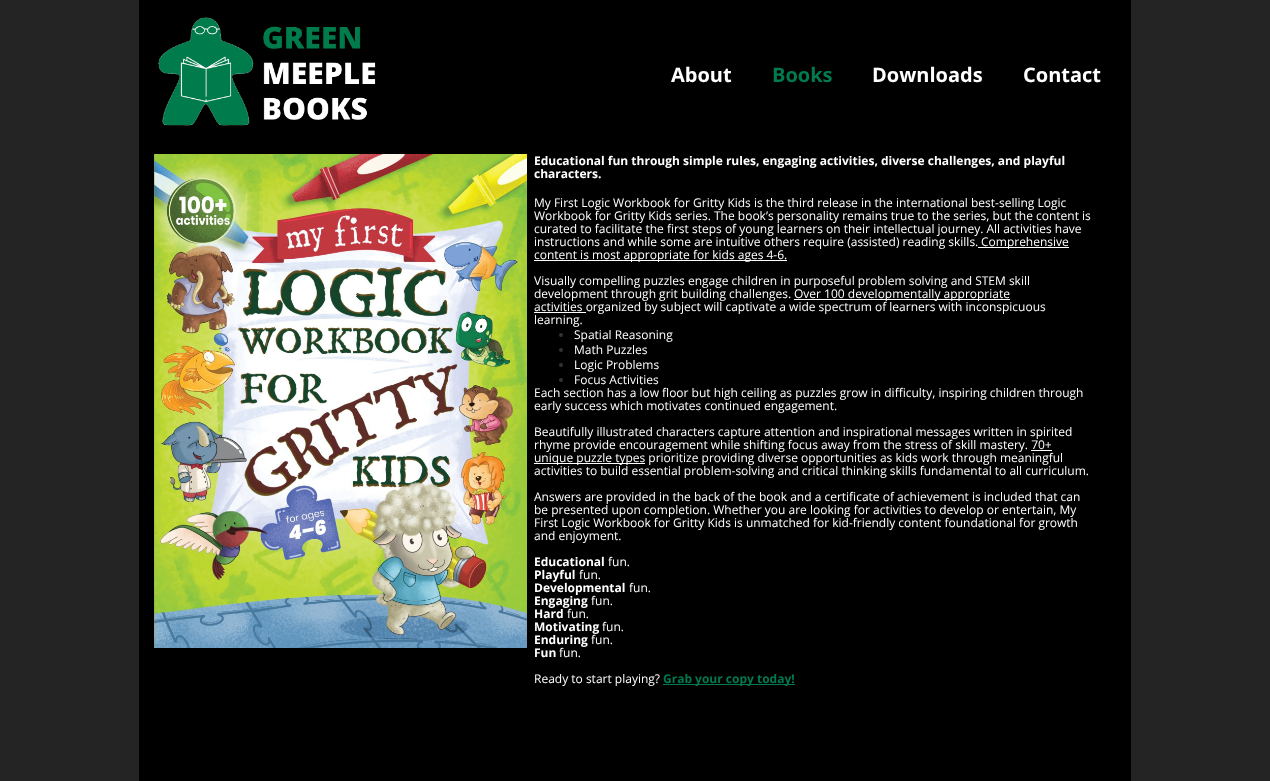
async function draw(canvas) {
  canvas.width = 1270
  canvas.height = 781
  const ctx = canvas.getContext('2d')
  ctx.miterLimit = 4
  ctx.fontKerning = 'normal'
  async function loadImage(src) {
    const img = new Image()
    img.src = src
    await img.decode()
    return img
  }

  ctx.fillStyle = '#242424'
  ctx.fillRect(0, 0, 1270, 781)
  ctx.fillStyle = '#000'
  ctx.fillRect(139, 0, 992, 781)
  ctx.drawImage(await loadImage('image0.png'), 158, 17, 218, 109)
  ctx.font = 'bold 20px Open Sans'
  ctx.fillStyle = '#fff'
  ctx.fillText('About', 671, 82)
  ctx.fillStyle = '#007a4e'
  ctx.fillText('Books', 772, 82)
  ctx.fillStyle = '#fff'
  ctx.fillText('Downloads', 872, 82)
  ctx.fillText('Contact', 1023, 82)
  ctx.drawImage(await loadImage('image1.png'), 154, 154, 373, 494)
  ctx.font = 'bold 12px Open Sans'
  ctx.fillText('Educational fun through simple rules, engaging activities, diverse challenges, and playful', 534, 165)
  ctx.fillText('characters.', 534, 178)
  ctx.font = '12px Open Sans'
  ctx.fillText('My First Logic Workbook for Gritty Kids is the third release in the international best-selling Logic', 534, 207)
  ctx.fillText('Workbook for Gritty Kids series. The book’s personality remains true to the series, but the content is', 534, 220)
  ctx.fillText('curated to facilitate the first steps of young learners on their intellectual journey. All activities have', 534, 233)
  ctx.fillText('instructions and while some are intuitive others require (assisted) reading skills.', 534, 246)
  ctx.fillRect(978, 247, 91, 1)
  ctx.fillText('Comprehensive', 981, 246)
  ctx.fillRect(534, 260, 253, 1)
  ctx.fillText('content is most appropriate for kids ages 4-6.', 534, 259)
  ctx.fillText('Visually compelling puzzles engage children in purposeful problem solving and STEM skill', 534, 285)
  ctx.fillText('development through grit building challenges.', 534, 298)
  ctx.fillRect(794, 299, 216, 1)
  ctx.fillText('Over 100 developmentally appropriate', 794, 298)
  ctx.fillRect(534, 312, 52, 1)
  ctx.fillText('activities organized by subject will captivate a wide spectrum of learners with inconspicuous', 534, 311)
  ctx.fillText('learning.', 534, 324)
  ctx.fillStyle = '#333'
  ctx.beginPath()
  ctx.arc(561, 335, 2, 0, 2 * Math.PI)
  ctx.fill()
  ctx.fillStyle = '#fff'
  ctx.fillText('Spatial Reasoning', 574, 339)
  ctx.fillStyle = '#333'
  ctx.beginPath()
  ctx.arc(561, 350, 2, 0, 2 * Math.PI)
  ctx.fill()
  ctx.fillStyle = '#fff'
  ctx.fillText('Math Puzzles', 574, 354)
  ctx.fillStyle = '#333'
  ctx.beginPath()
  ctx.arc(561, 365, 2, 0, 2 * Math.PI)
  ctx.fill()
  ctx.fillStyle = '#fff'
  ctx.fillText('Logic Problems', 574, 369)
  ctx.fillStyle = '#333'
  ctx.beginPath()
  ctx.arc(561, 380, 2, 0, 2 * Math.PI)
  ctx.fill()
  ctx.fillStyle = '#fff'
  ctx.fillText('Focus Activities', 574, 384)
  ctx.fillText('Each section has a low floor but high ceiling as puzzles grow in difficulty, inspiring children through', 534, 397)
  ctx.fillText('early success which motivates continued engagement.', 534, 410)
  ctx.fillText('Beautifully illustrated characters capture attention and inspirational messages written in spirited', 534, 436)
  ctx.fillText('rhyme provide encouragement while shifting focus away from the stress of skill mastery. 70+', 534, 449)
  ctx.fillRect(534, 463, 111, 1)
  ctx.fillText('unique puzzle types prioritize providing diverse opportunities as kids work through meaningful', 534, 462)
  ctx.fillRect(1031, 450, 21, 1)
  ctx.fillText('activities to build essential problem-solving and critical thinking skills fundamental to all curriculum.', 534, 475)
  ctx.fillText('Answers are provided in the back of the book and a certificate of achievement is included that can', 534, 501)
  ctx.fillText('be presented upon completion. Whether you are looking for activities to develop or entertain, My', 534, 514)
  ctx.fillText('First Logic Workbook for Gritty Kids is unmatched for kid-friendly content foundational for growth', 534, 527)
  ctx.fillText('and enjoyment.', 534, 540)
  ctx.font = 'bold 12px Open Sans'
  ctx.fillText('Educational', 534, 566)
  ctx.font = '12px Open Sans'
  ctx.fillText('fun.', 608, 566)
  ctx.font = 'bold 12px Open Sans'
  ctx.fillText('Playful', 534, 579)
  ctx.font = '12px Open Sans'
  ctx.fillText('fun.', 579, 579)
  ctx.font = 'bold 12px Open Sans'
  ctx.fillText('Developmental', 534, 592)
  ctx.font = '12px Open Sans'
  ctx.fillText('fun.', 629, 592)
  ctx.font = 'bold 12px Open Sans'
  ctx.fillText('Engaging', 534, 605)
  ctx.font = '12px Open Sans'
  ctx.fillText('fun.', 591, 605)
  ctx.font = 'bold 12px Open Sans'
  ctx.fillText('Hard', 534, 618)
  ctx.font = '12px Open Sans'
  ctx.fillText('fun.', 567, 618)
  ctx.font = 'bold 12px Open Sans'
  ctx.fillText('Motivating', 534, 631)
  ctx.font = '12px Open Sans'
  ctx.fillText('fun.', 602, 631)
  ctx.font = 'bold 12px Open Sans'
  ctx.fillText('Enduring', 534, 644)
  ctx.font = '12px Open Sans'
  ctx.fillText('fun.', 591, 644)
  ctx.font = 'bold 12px Open Sans'
  ctx.fillText('Fun', 534, 657)
  ctx.font = '12px Open Sans'
  ctx.fillText('fun.', 559, 657)
  ctx.fillText('Ready to start playing?', 534, 683)
  ctx.fillStyle = '#007a4e'
  ctx.fillRect(663, 684, 132, 1)
  ctx.font = 'bold 12px Open Sans'
  ctx.fillText('Grab your copy today!', 663, 683)
}

draw(document.querySelector('canvas'))
